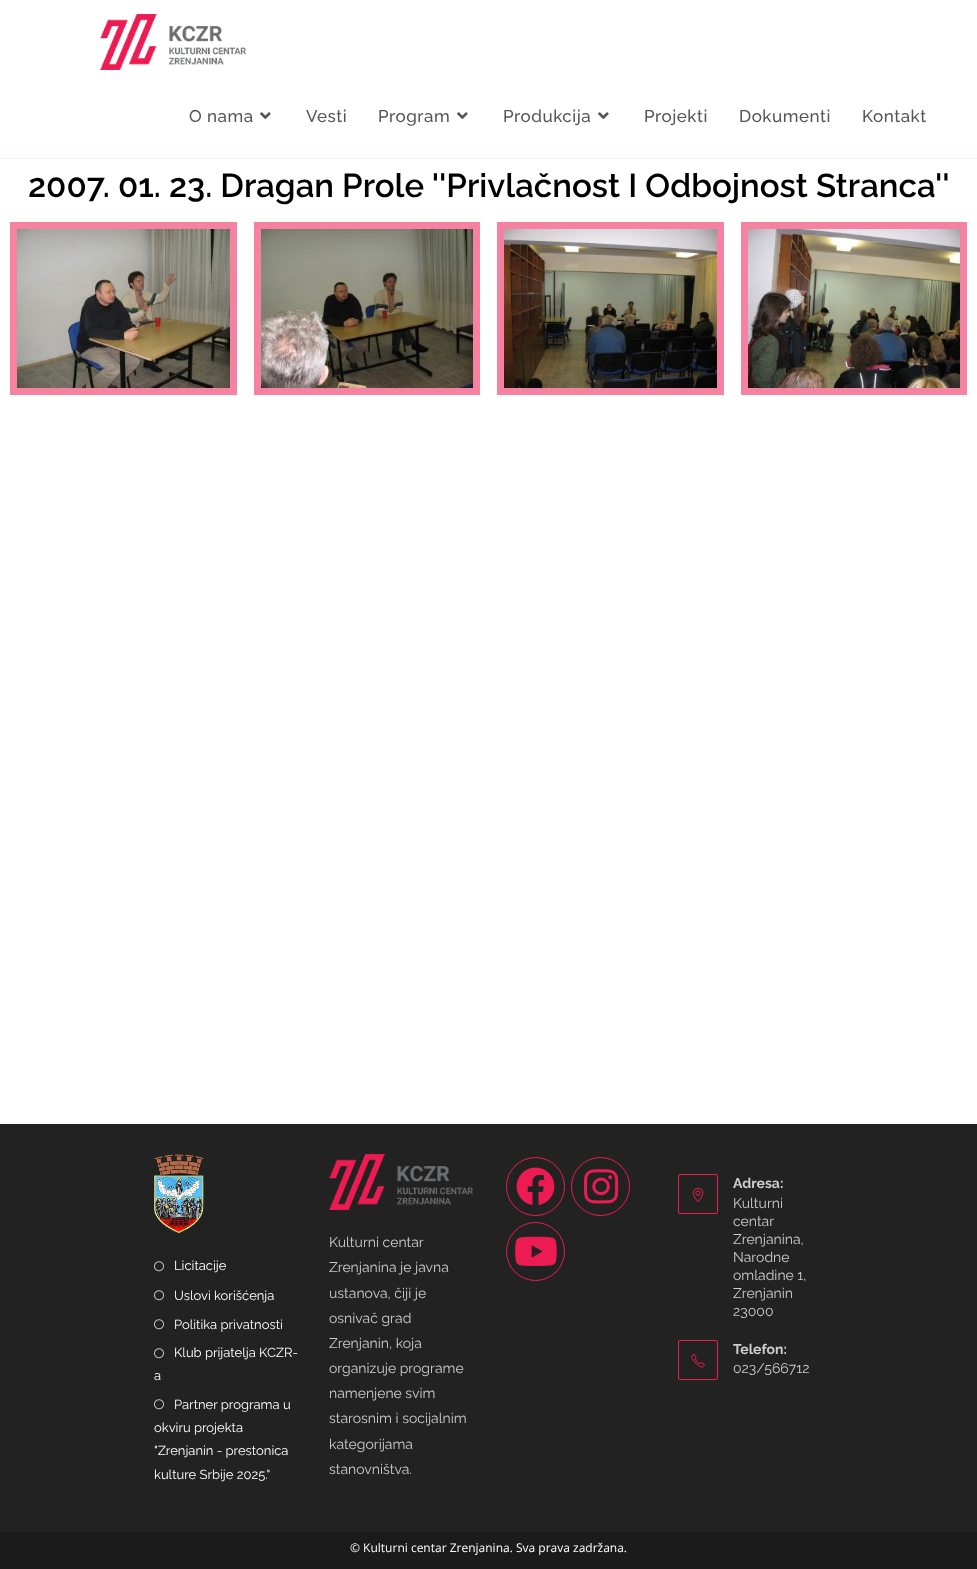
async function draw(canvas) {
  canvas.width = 977
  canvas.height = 1569
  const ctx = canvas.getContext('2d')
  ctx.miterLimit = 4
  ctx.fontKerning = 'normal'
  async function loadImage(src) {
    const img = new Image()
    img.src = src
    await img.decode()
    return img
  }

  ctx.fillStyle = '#fff'
  ctx.fillRect(0, 0, 977, 1569)
  ctx.fillStyle = '#fdeaef'
  ctx.fillRect(0, 158, 977, 1)
  ctx.drawImage(await loadImage('image0.png'), 100, 14, 146, 56)
  ctx.letterSpacing = '0.5px'
  ctx.font = '500 17px Raleway'
  ctx.fillStyle = '#555'
  ctx.fillText('O nama', 189, 122)
  ctx.drawImage(await loadImage('image1.png'), 260, 112, 11, 7)
  ctx.fillText('Vesti', 306, 122)
  ctx.fillText('Program', 378, 122)
  ctx.drawImage(await loadImage('image1.png'), 457, 112, 11, 7)
  ctx.fillText('Produkcija', 503, 122)
  ctx.drawImage(await loadImage('image1.png'), 598, 112, 11, 7)
  ctx.fillText('Projekti', 644, 122)
  ctx.fillText('Dokumenti', 739, 122)
  ctx.fillText('Kontakt', 862, 122)
  ctx.letterSpacing = '0px'
  ctx.font = '600 33px Raleway'
  ctx.fillStyle = '#000'
  ctx.fillText('2007. 01. 23. Dragan Prole \'\'Privlačnost I Odbojnost Stranca\'\'', 28, 197)
  ctx.strokeStyle = '#f582a0'
  ctx.lineWidth = 7
  ctx.strokeRect(13.5, 225.5, 220, 166)
  ctx.drawImage(await loadImage('image2.png'), 17, 229, 213, 159)
  ctx.strokeRect(257.5, 225.5, 219, 166)
  ctx.drawImage(await loadImage('image3.png'), 261, 229, 212, 159)
  ctx.strokeRect(500.5, 225.5, 220, 166)
  ctx.drawImage(await loadImage('image4.png'), 504, 229, 213, 159)
  ctx.strokeRect(744.5, 225.5, 219, 166)
  ctx.drawImage(await loadImage('image5.png'), 748, 229, 212, 159)
  ctx.fillStyle = '#222'
  ctx.fillRect(0, 1124, 977, 408)
  ctx.drawImage(await loadImage('image6.png'), 154, 1154, 50, 79)
  ctx.drawImage(await loadImage('image7.png'), 154, 1261, 10, 11)
  ctx.font = '13px Raleway'
  ctx.fillStyle = '#fff'
  ctx.fillText('Licitacije', 174, 1270)
  ctx.drawImage(await loadImage('image7.png'), 154, 1290, 10, 11)
  ctx.fillText('Uslovi korišćenja', 174, 1300)
  ctx.drawImage(await loadImage('image7.png'), 154, 1319, 10, 11)
  ctx.fillText('Politika privatnosti', 174, 1329)
  ctx.drawImage(await loadImage('image7.png'), 154, 1348, 10, 11)
  ctx.fillText('Klub prijatelja KCZR-', 174, 1357)
  ctx.fillText('a', 154, 1380)
  ctx.drawImage(await loadImage('image7.png'), 154, 1399, 10, 11)
  ctx.fillText('Partner programa u', 174, 1409)
  ctx.fillText('okviru projekta', 154, 1432)
  ctx.fillText('"Zrenjanin - prestonica', 154, 1455)
  ctx.fillText('kulture Srbije 2025."', 154, 1479)
  ctx.drawImage(await loadImage('image8.png'), 329, 1154, 144, 56)
  ctx.font = '14px Raleway'
  ctx.fillStyle = '#ccc'
  ctx.fillText('Kulturni centar', 329, 1247)
  ctx.fillText('Zrenjanina je javna', 329, 1272)
  ctx.fillText('ustanova, čiji je', 329, 1298)
  ctx.fillText('osnivač grad', 329, 1323)
  ctx.fillText('Zrenjanin, koja', 329, 1348)
  ctx.fillText('organizuje programe', 329, 1373)
  ctx.fillText('namenjene svim', 329, 1398)
  ctx.fillText('starosnim i socijalnim', 329, 1423)
  ctx.fillText('kategorijama', 329, 1449)
  ctx.fillText('stanovništva.', 329, 1474)
  ctx.beginPath()
  ctx.arc(535.5, 1186.5, 29, 0, 2 * Math.PI)
  ctx.strokeStyle = '#ec1b52'
  ctx.lineWidth = 1
  ctx.stroke()
  ctx.drawImage(await loadImage('image9.png'), 516, 1167, 39, 38)
  ctx.beginPath()
  ctx.arc(600.5, 1186.5, 29, 0, 2 * Math.PI)
  ctx.stroke()
  ctx.drawImage(await loadImage('image10.png'), 584, 1169, 35, 35)
  ctx.beginPath()
  ctx.arc(535.5, 1251.5, 29, 0, 2 * Math.PI)
  ctx.stroke()
  ctx.drawImage(await loadImage('image11.png'), 515, 1236, 42, 30)
  ctx.beginPath()
  ctx.roundRect(678.5, 1174.5, 39, 39, 1.5)
  ctx.stroke()
  ctx.drawImage(await loadImage('image12.png'), 692, 1187, 12, 15)
  ctx.font = 'bold 14px Raleway'
  ctx.fillText('Adresa:', 733, 1188)
  ctx.font = '14px Raleway'
  ctx.fillText('Kulturni', 733, 1208)
  ctx.fillText('centar', 733, 1226)
  ctx.fillText('Zrenjanina,', 733, 1244)
  ctx.fillText('Narodne', 733, 1262)
  ctx.fillText('omladine 1,', 733, 1280)
  ctx.fillText('Zrenjanin', 733, 1298)
  ctx.fillText('23000', 733, 1316)
  ctx.beginPath()
  ctx.roundRect(678.5, 1340.5, 39, 39, 1.5)
  ctx.stroke()
  ctx.drawImage(await loadImage('image13.png'), 691, 1354, 14, 14)
  ctx.font = 'bold 14px Raleway'
  ctx.fillText('Telefon:', 733, 1354)
  ctx.font = '14px Raleway'
  ctx.fillText('023/566712', 733, 1373)
  ctx.fillStyle = '#1b1b1b'
  ctx.fillRect(0, 1532, 977, 37)
  ctx.font = '12px Open Sans'
  ctx.fillStyle = '#fff'
  ctx.fillText('© Kulturni centar Zrenjanina. Sva prava zadržana.', 350, 1552)
}

draw(document.querySelector('canvas'))
